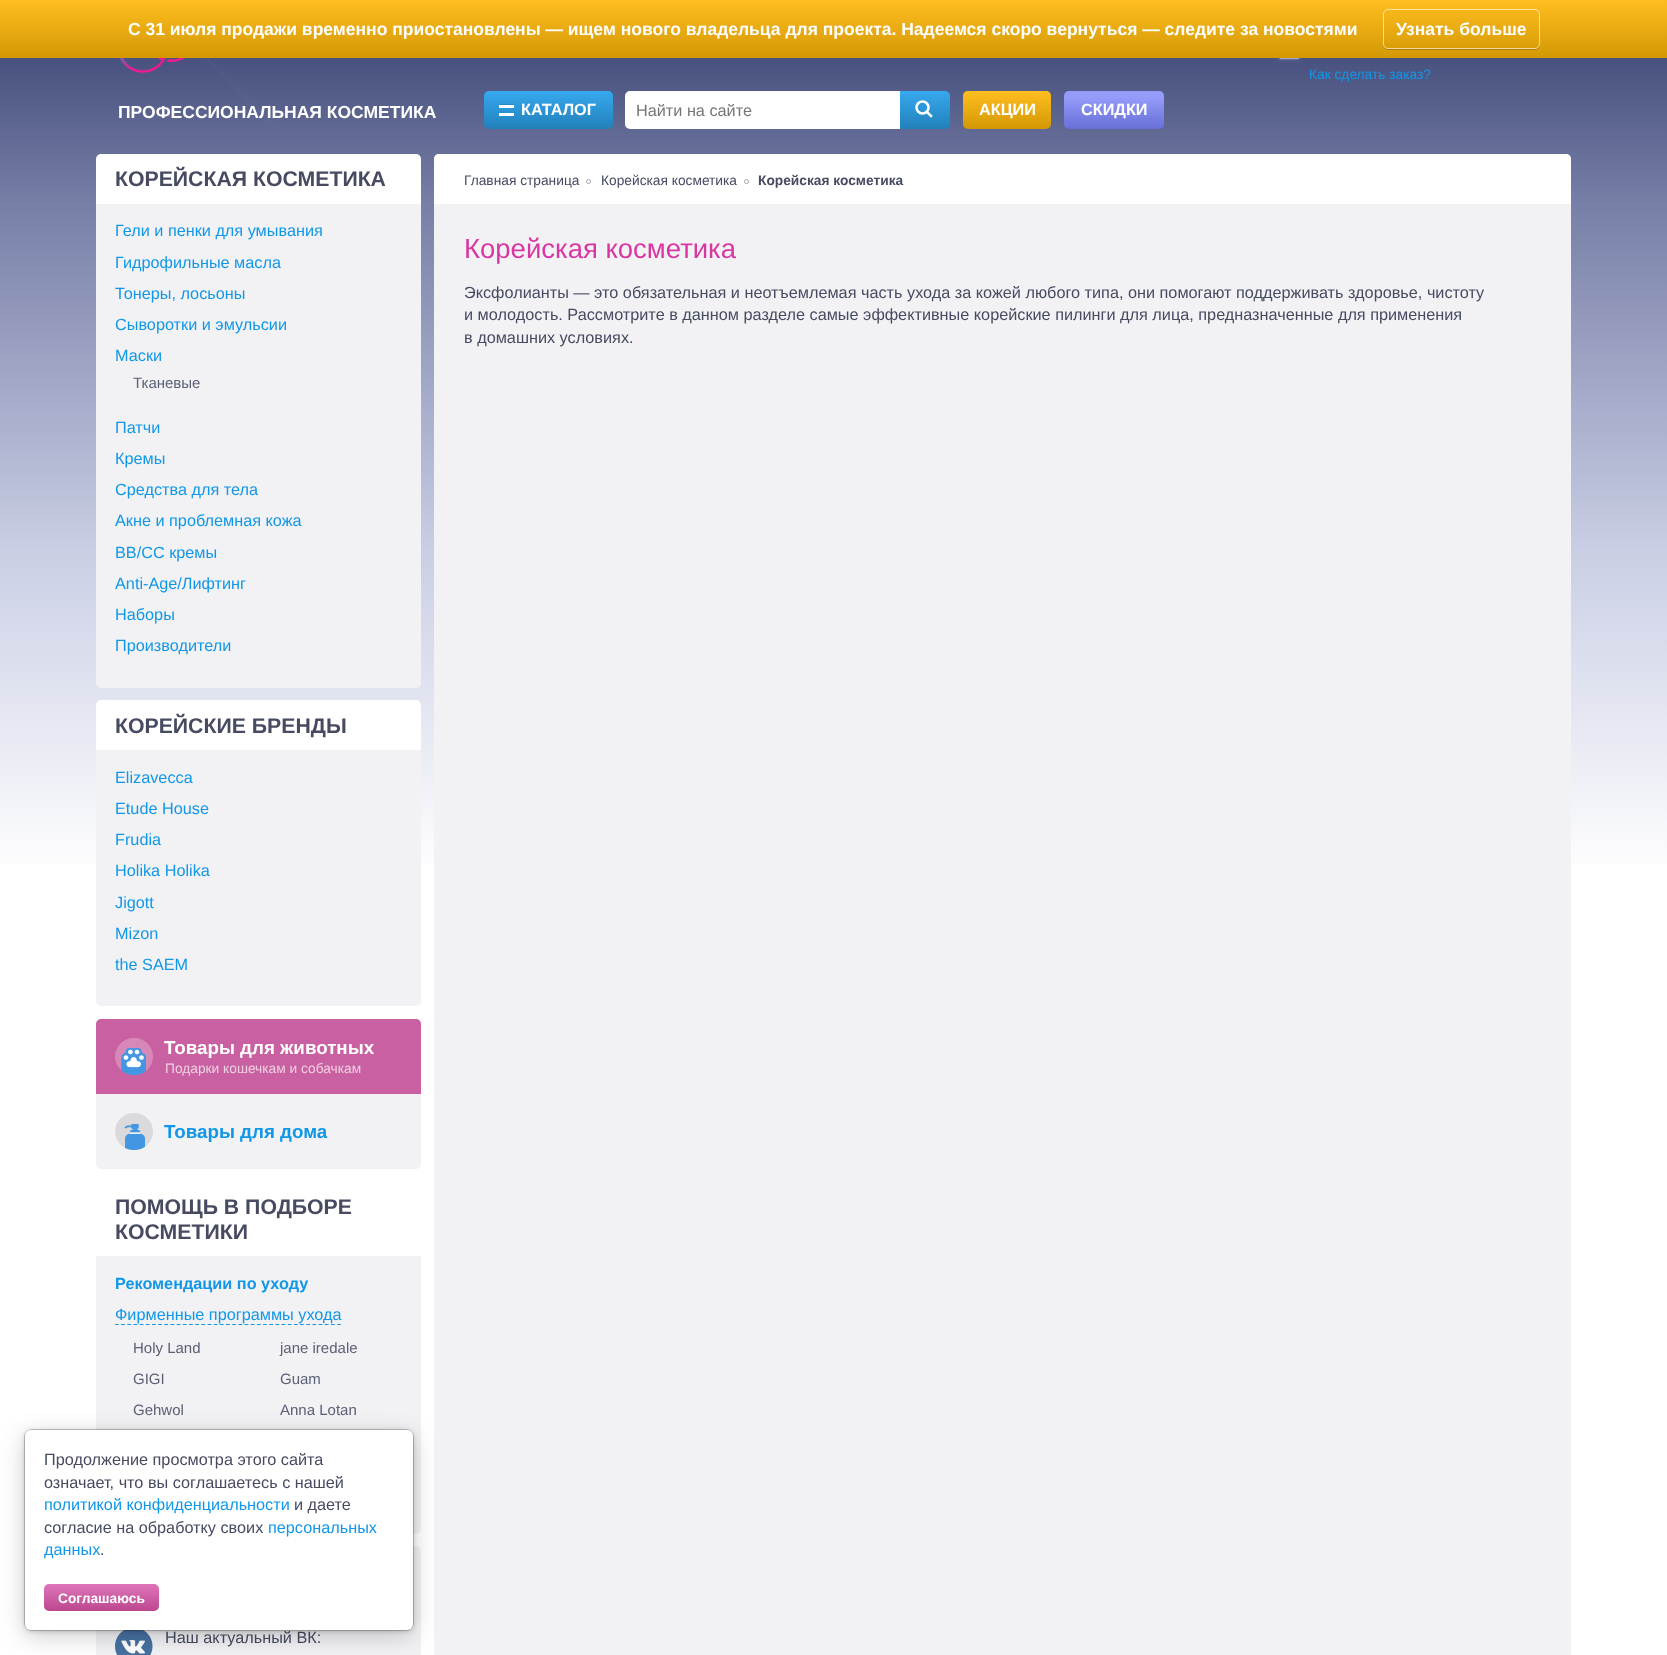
async function draw(canvas) {
  canvas.width = 1667
  canvas.height = 1655
  const ctx = canvas.getContext('2d')
  ctx.miterLimit = 4
  ctx.fontKerning = 'normal'
  async function loadImage(src) {
    const img = new Image()
    img.src = src
    await img.decode()
    return img
  }
  let gradient

  ctx.fillStyle = '#fff'
  ctx.fillRect(0, 0, 1667, 1655)
  gradient = ctx.createLinearGradient(834, -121, 834, 879)
  gradient.addColorStop(0, '#0f194e')
  gradient.addColorStop(0.32, '#767ea6')
  gradient.addColorStop(0.67, '#c9cee4')
  gradient.addColorStop(1, '#fff')
  ctx.fillStyle = gradient
  ctx.fillRect(0, 58, 1667, 806)
  ctx.drawImage(await loadImage('image0.png'), 206, 58, 71, 70)
  gradient = ctx.createLinearGradient(834, 0, 834, 58)
  gradient.addColorStop(0, '#ffbe20')
  gradient.addColorStop(1, '#d39804')
  ctx.fillStyle = gradient
  ctx.fillRect(0, 0, 1667, 58)
  ctx.font = 'bold 17.5px Liberation Sans'
  ctx.fillStyle = '#fff'
  ctx.fillText('С 31 июля продажи временно приостановлены — ищем нового владельца для проекта. Надеемся скоро вернуться — следите за новостями', 128, 35)
  ctx.save()
  ctx.beginPath()
  ctx.moveTo(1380, 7)
  ctx.lineTo(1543, 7)
  ctx.lineTo(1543, 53)
  ctx.lineTo(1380, 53)
  ctx.closePath()
  ctx.moveTo(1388, 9)
  ctx.lineTo(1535, 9)
  ctx.bezierCurveTo(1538, 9, 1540, 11, 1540, 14)
  ctx.lineTo(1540, 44)
  ctx.bezierCurveTo(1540, 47, 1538, 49, 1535, 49)
  ctx.lineTo(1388, 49)
  ctx.bezierCurveTo(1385, 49, 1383, 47, 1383, 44)
  ctx.lineTo(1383, 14)
  ctx.bezierCurveTo(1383, 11, 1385, 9, 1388, 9)
  ctx.closePath()
  ctx.clip('evenodd')
  ctx.fillStyle = '#00000033'
  ctx.filter = 'blur(0.5px)'
  ctx.beginPath()
  ctx.roundRect(1383, 10, 157, 40, 5)
  ctx.fill()
  ctx.filter = 'none'
  ctx.restore()
  ctx.beginPath()
  ctx.roundRect(1383.5, 9.5, 156, 39, 4.5)
  ctx.strokeStyle = '#ffffff99'
  ctx.stroke()
  ctx.fillText('Узнать больше', 1396, 35)
  ctx.drawImage(await loadImage('image1.png'), 120, 58, 65, 15)
  ctx.fillText('ПРОФЕССИОНАЛЬНАЯ КОСМЕТИКА', 118, 118)
  ctx.drawImage(await loadImage('image2.png'), 1275, 58, 28, 5)
  ctx.font = '13.75px Liberation Sans'
  ctx.fillStyle = '#1197e8'
  ctx.fillText('Как сделать заказ?', 1309, 79)
  ctx.fillStyle = '#2280b9'
  ctx.beginPath()
  ctx.roundRect(484, 91, 129, 38, 5)
  ctx.fill()
  gradient = ctx.createLinearGradient(548, 91, 548, 129)
  gradient.addColorStop(0, '#36a9ef')
  gradient.addColorStop(1, '#36a9ef00')
  ctx.fillStyle = gradient
  ctx.beginPath()
  ctx.roundRect(484, 91, 129, 38, 5)
  ctx.fill()
  ctx.fillStyle = '#2a8bc6'
  ctx.beginPath()
  ctx.moveTo(499, 104)
  ctx.lineTo(499, 105)
  ctx.lineTo(514, 105)
  ctx.lineTo(514, 114)
  ctx.lineTo(514, 104)
  ctx.closePath()
  ctx.fill()
  ctx.fillStyle = '#fff'
  ctx.fillRect(499, 105, 15, 3)
  ctx.fillRect(499, 113, 15, 3)
  ctx.font = 'bold 16.25px Liberation Sans'
  ctx.fillText('КАТАЛОГ', 521, 115)
  ctx.beginPath()
  ctx.roundRect(625, 91, 275, 38, [5, 0, 0, 5])
  ctx.fill()
  ctx.font = '16.25px Liberation Sans'
  ctx.fillStyle = '#757575'
  ctx.fillText('Найти на сайте', 636, 116)
  gradient = ctx.createLinearGradient(925, 91, 925, 129)
  gradient.addColorStop(0, '#36a9ef')
  gradient.addColorStop(1, '#2280b9')
  ctx.fillStyle = gradient
  ctx.beginPath()
  ctx.roundRect(900, 91, 50, 38, [0, 5, 5, 0])
  ctx.fill()
  ctx.beginPath()
  ctx.arc(922.5, 107.5, 6, 0, 2 * Math.PI)
  ctx.strokeStyle = '#fff'
  ctx.lineWidth = 2.5
  ctx.stroke()
  ctx.beginPath()
  ctx.moveTo(927.5, 112.5)
  ctx.lineTo(931, 116)
  ctx.lineCap = 'square'
  ctx.stroke()
  ctx.fillStyle = '#d39804'
  ctx.beginPath()
  ctx.roundRect(963, 91, 88, 38, 5)
  ctx.fill()
  gradient = ctx.createLinearGradient(1007, 91, 1007, 129)
  gradient.addColorStop(0, '#ffbe20')
  gradient.addColorStop(1, '#ffbe2000')
  ctx.fillStyle = gradient
  ctx.beginPath()
  ctx.roundRect(963, 91, 88, 38, 5)
  ctx.fill()
  ctx.font = 'bold 16.25px Liberation Sans'
  ctx.fillStyle = '#fff'
  ctx.fillText('АКЦИИ', 979, 115)
  ctx.fillStyle = '#686fd7'
  ctx.beginPath()
  ctx.roundRect(1064, 91, 100, 38, 5)
  ctx.fill()
  gradient = ctx.createLinearGradient(1114, 91, 1114, 129)
  gradient.addColorStop(0.17, '#949bf9')
  gradient.addColorStop(1, '#949bf900')
  ctx.fillStyle = gradient
  ctx.beginPath()
  ctx.roundRect(1064, 91, 100, 38, 5)
  ctx.fill()
  ctx.fillStyle = '#fff'
  ctx.fillText('СКИДКИ', 1081, 115)
  ctx.beginPath()
  ctx.roundRect(96, 154, 325, 50, [5, 5, 0, 0])
  ctx.fill()
  ctx.font = 'bold 21.25px Liberation Sans'
  ctx.fillStyle = '#464b61'
  ctx.fillText('КОРЕЙСКАЯ КОСМЕТИКА', 115, 186)
  ctx.fillStyle = '#f2f2f4'
  ctx.beginPath()
  ctx.roundRect(96, 204, 325, 484, [0, 0, 5, 5])
  ctx.fill()
  ctx.font = '16.25px Liberation Sans'
  ctx.fillStyle = '#1197e8'
  ctx.fillText('Гели и пенки для умывания', 115, 236)
  ctx.fillText('Гидрофильные масла', 115, 268)
  ctx.fillText('Тонеры, лосьоны', 115, 299)
  ctx.fillText('Сыворотки и эмульсии', 115, 330)
  ctx.fillText('Маски', 115, 361)
  ctx.font = '15px Liberation Sans'
  ctx.fillStyle = '#5b6076'
  ctx.fillText('Тканевые', 133, 388)
  ctx.font = '16.25px Liberation Sans'
  ctx.fillStyle = '#1197e8'
  ctx.fillText('Патчи', 115, 433)
  ctx.fillText('Кремы', 115, 464)
  ctx.fillText('Средства для тела', 115, 495)
  ctx.fillText('Акне и проблемная кожа', 115, 526)
  ctx.fillText('BB/СС кремы', 115, 558)
  ctx.fillText('Anti-Age/Лифтинг', 115, 589)
  ctx.fillText('Наборы', 115, 620)
  ctx.fillText('Производители', 115, 651)
  ctx.fillStyle = '#fff'
  ctx.beginPath()
  ctx.roundRect(96, 700, 325, 50, [5, 5, 0, 0])
  ctx.fill()
  ctx.font = 'bold 21.25px Liberation Sans'
  ctx.fillStyle = '#464b61'
  ctx.fillText('КОРЕЙСКИЕ БРЕНДЫ', 115, 733)
  ctx.fillStyle = '#f2f2f4'
  ctx.beginPath()
  ctx.roundRect(96, 750, 325, 256, [0, 0, 5, 5])
  ctx.fill()
  ctx.font = '16.25px Liberation Sans'
  ctx.fillStyle = '#1197e8'
  ctx.fillText('Elizavecca', 115, 783)
  ctx.fillText('Etude House', 115, 814)
  ctx.fillText('Frudia', 115, 845)
  ctx.fillText('Holika Holika', 115, 876)
  ctx.fillText('Jigott', 115, 908)
  ctx.fillText('Mizon', 115, 939)
  ctx.fillText('the SAEM', 115, 970)
  ctx.fillStyle = '#c960a1'
  ctx.beginPath()
  ctx.roundRect(96, 1019, 325, 75, [5, 5, 0, 0])
  ctx.fill()
  ctx.fillStyle = '#d788b9'
  ctx.beginPath()
  ctx.roundRect(115, 1038, 38, 37, 18.5)
  ctx.fill()
  ctx.drawImage(await loadImage('image3.png'), 121, 1048, 25, 27)
  ctx.font = 'bold 18.75px Liberation Sans'
  ctx.fillStyle = '#fff'
  ctx.fillText('Товары для животных', 164, 1054)
  ctx.font = '13.75px Liberation Sans'
  ctx.fillStyle = '#efcfe3'
  ctx.fillText('Подарки кошечкам и собачкам', 165, 1073)
  ctx.fillStyle = '#f2f2f4'
  ctx.beginPath()
  ctx.roundRect(96, 1094, 325, 75, [0, 0, 5, 5])
  ctx.fill()
  ctx.fillStyle = '#dadadc'
  ctx.beginPath()
  ctx.roundRect(115, 1113, 38, 37, 18.5)
  ctx.fill()
  ctx.drawImage(await loadImage('image4.png'), 124, 1124, 21, 26)
  ctx.font = 'bold 18.75px Liberation Sans'
  ctx.fillStyle = '#1197e8'
  ctx.fillText('Товары для дома', 164, 1138)
  ctx.font = 'bold 21.25px Liberation Sans'
  ctx.fillStyle = '#464b61'
  ctx.fillText('ПОМОЩЬ В ПОДБОРЕ', 115, 1214)
  ctx.fillText('КОСМЕТИКИ', 115, 1239)
  ctx.fillStyle = '#f2f2f4'
  ctx.beginPath()
  ctx.roundRect(96, 1256, 325, 278, [0, 0, 5, 5])
  ctx.fill()
  ctx.font = 'bold 16.25px Liberation Sans'
  ctx.fillStyle = '#1197e8'
  ctx.fillText('Рекомендации по уходу', 115, 1289)
  ctx.beginPath()
  ctx.moveTo(115, 1324.5)
  ctx.lineTo(341, 1324.5)
  ctx.strokeStyle = '#1197e8'
  ctx.lineWidth = 1.2
  ctx.lineCap = 'butt'
  ctx.setLineDash([3.75, 2.42])
  ctx.stroke()
  ctx.font = '16.25px Liberation Sans'
  ctx.fillText('Фирменные программы ухода', 115, 1320)
  ctx.font = '15px Liberation Sans'
  ctx.fillStyle = '#5b6076'
  ctx.fillText('Holy Land', 133, 1353)
  ctx.fillText('jane iredale', 280, 1353)
  ctx.fillText('GIGI', 133, 1384)
  ctx.fillText('Guam', 280, 1384)
  ctx.fillText('Gehwol', 133, 1415)
  ctx.fillText('Anna Lotan', 280, 1415)
  ctx.fillStyle = '#f2f2f4'
  ctx.beginPath()
  ctx.roundRect(96, 1546, 325, 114, 5)
  ctx.fill()
  ctx.drawImage(await loadImage('image5.png'), 115, 1630, 38, 25)
  ctx.font = '16.25px Liberation Sans'
  ctx.fillStyle = '#464b61'
  ctx.fillText('Наш актуальный ВК:', 165, 1643)
  ctx.fillStyle = '#f2f2f4'
  ctx.beginPath()
  ctx.roundRect(434, 154, 1137, 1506, 5)
  ctx.fill()
  ctx.fillStyle = '#fff'
  ctx.beginPath()
  ctx.roundRect(434, 154, 1137, 50, [5, 5, 0, 0])
  ctx.fill()
  ctx.font = '13.75px Liberation Sans'
  ctx.fillStyle = '#464b61'
  ctx.fillText('Главная страница', 464, 185)
  ctx.beginPath()
  ctx.arc(588.5, 181.5, 2, 0, 2 * Math.PI)
  ctx.strokeStyle = '#a3a5b0'
  ctx.lineWidth = 1
  ctx.setLineDash([])
  ctx.stroke()
  ctx.fillText('Корейская косметика', 601, 185)
  ctx.beginPath()
  ctx.arc(746.5, 181.5, 2, 0, 2 * Math.PI)
  ctx.stroke()
  ctx.font = 'bold 13.75px Liberation Sans'
  ctx.fillText('Корейская косметика', 758, 185)
  ctx.font = '27.5px Liberation Sans'
  ctx.fillStyle = '#d936a3'
  ctx.fillText('Корейская косметика', 464, 258)
  ctx.font = '16.25px Liberation Sans'
  ctx.fillStyle = '#464b61'
  ctx.fillText('Эксфолианты — это обязательная и неотъемлемая часть ухода за кожей любого типа, они помогают поддерживать здоровье, чистоту', 464, 298)
  ctx.fillText('и молодость. Рассмотрите в данном разделе самые эффективные корейские пилинги для лица, предназначенные для применения', 464, 320)
  ctx.fillText('в домашних условиях.', 464, 343)
  ctx.fillStyle = '#00000033'
  ctx.filter = 'blur(12.5px)'
  ctx.beginPath()
  ctx.roundRect(25, 1436, 388, 200, 6)
  ctx.fill()
  ctx.filter = 'none'
  ctx.filter = 'blur(2.5px)'
  ctx.beginPath()
  ctx.roundRect(25, 1431, 388, 200, 6)
  ctx.fill()
  ctx.filter = 'none'
  ctx.beginPath()
  ctx.roundRect(24.5, 1429.5, 389, 201, 7.5)
  ctx.strokeStyle = '#00000033'
  ctx.stroke()
  ctx.fillStyle = '#fff'
  ctx.beginPath()
  ctx.roundRect(25, 1430, 388, 200, 6)
  ctx.fill()
  ctx.fillStyle = '#464b61'
  ctx.fillText('Продолжение просмотра этого сайта', 44, 1465)
  ctx.fillText('означает, что вы соглашаетесь с нашей', 44, 1488)
  ctx.fillStyle = '#1197e8'
  ctx.fillText('политикой конфиденциальности', 44, 1510)
  ctx.fillStyle = '#464b61'
  ctx.fillText('и даете', 294, 1510)
  ctx.fillText('согласие на обработку своих', 44, 1533)
  ctx.fillStyle = '#1197e8'
  ctx.fillText('персональных', 268, 1533)
  ctx.fillText('данных', 44, 1555)
  ctx.fillStyle = '#464b61'
  ctx.fillText('.', 100, 1555)
  gradient = ctx.createLinearGradient(101, 1584, 101, 1611)
  gradient.addColorStop(0, '#df76b9')
  gradient.addColorStop(1, '#bb478f')
  ctx.fillStyle = gradient
  ctx.beginPath()
  ctx.roundRect(44, 1584, 115, 27, 5)
  ctx.fill()
  ctx.font = 'bold 13.75px Liberation Sans'
  ctx.fillStyle = '#fff'
  ctx.fillText('Соглашаюсь', 58, 1603)
}

draw(document.querySelector('canvas'))
